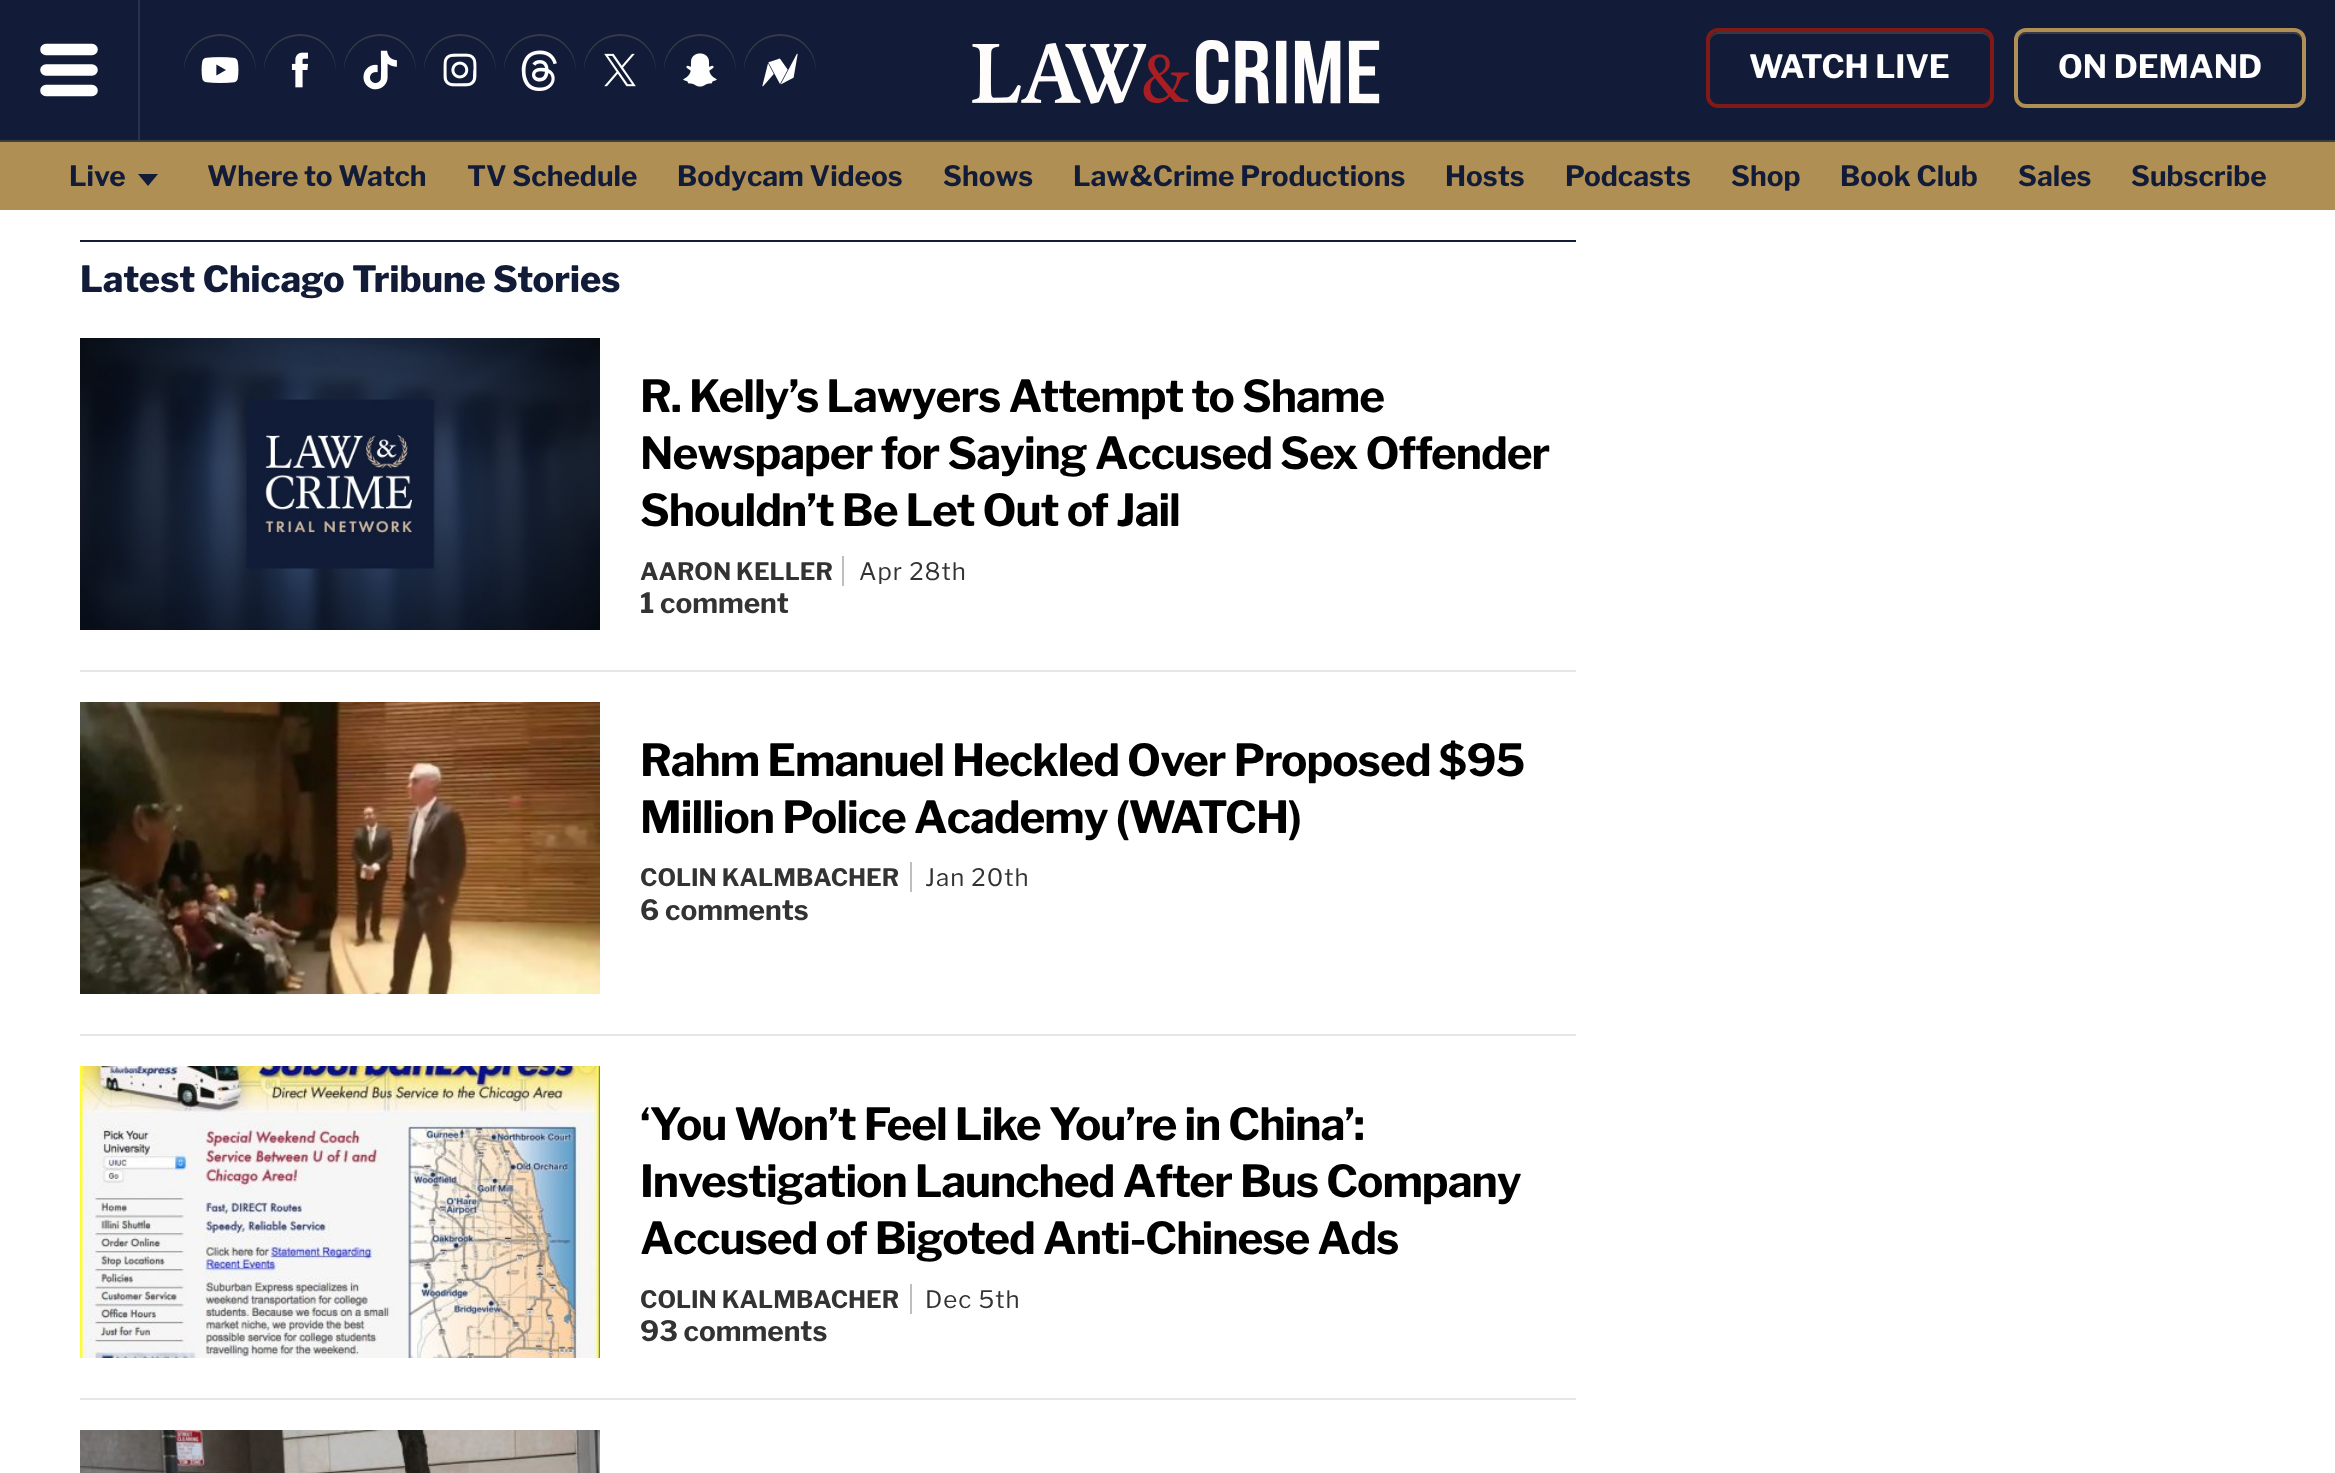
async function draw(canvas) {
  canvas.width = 2335
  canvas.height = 1473
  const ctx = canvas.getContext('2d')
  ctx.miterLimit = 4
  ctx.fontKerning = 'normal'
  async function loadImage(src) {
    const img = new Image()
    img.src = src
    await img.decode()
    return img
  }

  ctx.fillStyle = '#121c38'
  ctx.fillRect(0, 0, 2335, 1473)
  ctx.fillStyle = '#2a334c'
  ctx.fillRect(138, 0, 2, 140)
  ctx.beginPath()
  ctx.moveTo(46, 49.5)
  ctx.lineTo(92, 49.5)
  ctx.moveTo(46, 70)
  ctx.lineTo(92, 70)
  ctx.moveTo(46, 90.5)
  ctx.lineTo(92, 90.5)
  ctx.strokeStyle = '#fff'
  ctx.lineWidth = 11.6
  ctx.lineCap = 'round'
  ctx.stroke()
  ctx.fillStyle = '#383846'
  ctx.beginPath()
  ctx.moveTo(220, 36)
  ctx.bezierCurveTo(240, 36, 255, 51, 256, 71)
  ctx.bezierCurveTo(256, 64, 254, 56, 250, 50)
  ctx.bezierCurveTo(230, 20, 183, 35, 184, 71)
  ctx.bezierCurveTo(185, 51, 200, 36, 220, 36)
  ctx.closePath()
  ctx.fill()
  ctx.drawImage(await loadImage('image0.png'), 201, 57, 38, 26)
  ctx.beginPath()
  ctx.moveTo(300, 36)
  ctx.bezierCurveTo(320, 36, 335, 51, 336, 71)
  ctx.bezierCurveTo(336, 64, 334, 56, 330, 50)
  ctx.bezierCurveTo(310, 20, 263, 35, 264, 71)
  ctx.bezierCurveTo(265, 51, 280, 36, 300, 36)
  ctx.closePath()
  ctx.fill()
  ctx.drawImage(await loadImage('image1.png'), 291, 52, 17, 36)
  ctx.beginPath()
  ctx.moveTo(380, 36)
  ctx.bezierCurveTo(400, 36, 415, 51, 416, 71)
  ctx.bezierCurveTo(416, 64, 414, 56, 410, 50)
  ctx.bezierCurveTo(390, 20, 343, 35, 344, 71)
  ctx.bezierCurveTo(345, 51, 360, 36, 380, 36)
  ctx.closePath()
  ctx.fill()
  ctx.drawImage(await loadImage('image2.png'), 363, 50, 34, 40)
  ctx.beginPath()
  ctx.moveTo(460, 36)
  ctx.bezierCurveTo(480, 36, 495, 51, 496, 71)
  ctx.bezierCurveTo(496, 64, 494, 56, 490, 50)
  ctx.bezierCurveTo(470, 20, 423, 35, 424, 71)
  ctx.bezierCurveTo(425, 51, 440, 36, 460, 36)
  ctx.closePath()
  ctx.fill()
  ctx.drawImage(await loadImage('image3.png'), 443, 53, 34, 34)
  ctx.beginPath()
  ctx.moveTo(540, 36)
  ctx.bezierCurveTo(560, 36, 575, 51, 576, 71)
  ctx.bezierCurveTo(576, 64, 574, 56, 570, 50)
  ctx.bezierCurveTo(550, 20, 503, 35, 504, 71)
  ctx.bezierCurveTo(505, 51, 520, 36, 540, 36)
  ctx.closePath()
  ctx.fill()
  ctx.drawImage(await loadImage('image4.png'), 521, 50, 36, 41)
  ctx.beginPath()
  ctx.moveTo(620, 36)
  ctx.bezierCurveTo(640, 36, 655, 51, 656, 71)
  ctx.bezierCurveTo(656, 64, 654, 56, 650, 50)
  ctx.bezierCurveTo(630, 20, 583, 35, 584, 71)
  ctx.bezierCurveTo(585, 51, 600, 36, 620, 36)
  ctx.closePath()
  ctx.fill()
  ctx.drawImage(await loadImage('image5.png'), 604, 53, 32, 34)
  ctx.beginPath()
  ctx.moveTo(700, 36)
  ctx.bezierCurveTo(720, 36, 735, 51, 736, 71)
  ctx.bezierCurveTo(736, 64, 734, 56, 730, 50)
  ctx.bezierCurveTo(710, 20, 663, 35, 664, 71)
  ctx.bezierCurveTo(665, 51, 680, 36, 700, 36)
  ctx.closePath()
  ctx.fill()
  ctx.drawImage(await loadImage('image6.png'), 683, 53, 34, 34)
  ctx.beginPath()
  ctx.moveTo(780, 36)
  ctx.bezierCurveTo(800, 36, 815, 51, 816, 71)
  ctx.bezierCurveTo(816, 64, 814, 56, 810, 50)
  ctx.bezierCurveTo(790, 20, 743, 35, 744, 71)
  ctx.bezierCurveTo(745, 51, 760, 36, 780, 36)
  ctx.closePath()
  ctx.fill()
  ctx.drawImage(await loadImage('image7.png'), 762, 53, 36, 34)
  ctx.drawImage(await loadImage('image8.png'), 972, 40, 408, 64)
  ctx.beginPath()
  ctx.moveTo(1718, 34)
  ctx.lineTo(1982, 34)
  ctx.bezierCurveTo(1986, 34, 1990, 38, 1990, 42)
  ctx.lineTo(1990, 40)
  ctx.bezierCurveTo(1990, 36, 1986, 32, 1982, 32)
  ctx.lineTo(1718, 32)
  ctx.bezierCurveTo(1714, 32, 1710, 36, 1710, 40)
  ctx.lineTo(1710, 42)
  ctx.bezierCurveTo(1710, 38, 1714, 34, 1718, 34)
  ctx.closePath()
  ctx.fill()
  ctx.beginPath()
  ctx.roundRect(1708, 30, 284, 76, 10)
  ctx.strokeStyle = '#811917'
  ctx.lineWidth = 4
  ctx.stroke()
  ctx.font = 'bold 32px Libre Franklin'
  ctx.fillStyle = '#fff'
  ctx.fillText('WATCH LIVE', 1749, 78)
  ctx.fillStyle = '#383846'
  ctx.beginPath()
  ctx.moveTo(2026, 34)
  ctx.lineTo(2294, 34)
  ctx.bezierCurveTo(2298, 34, 2302, 38, 2302, 42)
  ctx.lineTo(2302, 40)
  ctx.bezierCurveTo(2302, 36, 2298, 32, 2294, 32)
  ctx.lineTo(2026, 32)
  ctx.bezierCurveTo(2022, 32, 2018, 36, 2018, 40)
  ctx.lineTo(2018, 42)
  ctx.bezierCurveTo(2018, 38, 2022, 34, 2026, 34)
  ctx.closePath()
  ctx.fill()
  ctx.beginPath()
  ctx.roundRect(2016, 30, 288, 76, 10)
  ctx.strokeStyle = '#af8f53'
  ctx.stroke()
  ctx.fillStyle = '#fff'
  ctx.fillText('ON DEMAND', 2058, 78)
  ctx.fillStyle = '#af8f53'
  ctx.fillRect(0, 142, 2335, 68)
  ctx.fillStyle = '#3d3d3d'
  ctx.fillRect(0, 140, 2335, 2)
  ctx.font = 'bold 28px Libre Franklin'
  ctx.fillStyle = '#121c38'
  ctx.fillText('Live', 69, 186)
  ctx.beginPath()
  ctx.moveTo(138, 174)
  ctx.lineTo(158, 174)
  ctx.lineTo(148, 186)
  ctx.closePath()
  ctx.fill()
  ctx.fillText('Where to Watch', 207, 186)
  ctx.fillText('TV Schedule', 467, 186)
  ctx.fillText('Bodycam Videos', 677, 186)
  ctx.fillText('Shows', 943, 186)
  ctx.fillText('Law&Crime Productions', 1073, 186)
  ctx.fillText('Hosts', 1445, 186)
  ctx.fillText('Podcasts', 1565, 186)
  ctx.fillText('Shop', 1731, 186)
  ctx.fillText('Book Club', 1840, 186)
  ctx.fillText('Sales', 2018, 186)
  ctx.fillText('Subscribe', 2131, 186)
  ctx.fillStyle = '#fff'
  ctx.fillRect(0, 210, 2335, 1263)
  ctx.fillStyle = '#121c38'
  ctx.fillRect(80, 240, 1496, 2)
  ctx.font = '800 36px Libre Franklin'
  ctx.fillText('Latest Chicago Tribune Stories', 80, 292)
  ctx.fillStyle = '#e6e6e6'
  ctx.fillRect(80, 670, 1496, 2)
  ctx.drawImage(await loadImage('image9.png'), 80, 338, 520, 292)
  ctx.letterSpacing = '-1px'
  ctx.font = 'bold 44px Libre Franklin'
  ctx.fillStyle = '#000'
  ctx.fillText('R. Kelly’s Lawyers Attempt to Shame', 640, 412)
  ctx.fillText('Newspaper for Saying Accused Sex Offender', 640, 469)
  ctx.fillText('Shouldn’t Be Let Out of Jail', 640, 526)
  ctx.letterSpacing = '0px'
  ctx.font = 'bold 24px Libre Franklin'
  ctx.fillStyle = '#333'
  ctx.fillText('AARON KELLER', 640, 580)
  ctx.letterSpacing = '1px'
  ctx.font = '24px Libre Franklin'
  ctx.fillText('Apr 28th', 859, 580)
  ctx.fillStyle = '#bfbfbf'
  ctx.fillRect(842, 556, 2, 30)
  ctx.letterSpacing = '0px'
  ctx.font = 'bold 28px Libre Franklin'
  ctx.fillStyle = '#333'
  ctx.fillText('1 comment', 640, 613)
  ctx.fillStyle = '#e6e6e6'
  ctx.fillRect(80, 1034, 1496, 2)
  ctx.drawImage(await loadImage('image10.png'), 80, 702, 520, 292)
  ctx.letterSpacing = '-1px'
  ctx.font = 'bold 44px Libre Franklin'
  ctx.fillStyle = '#000'
  ctx.fillText('Rahm Emanuel Heckled Over Proposed $95', 640, 776)
  ctx.fillText('Million Police Academy (WATCH)', 640, 833)
  ctx.letterSpacing = '0px'
  ctx.font = 'bold 24px Libre Franklin'
  ctx.fillStyle = '#333'
  ctx.fillText('COLIN KALMBACHER', 640, 886)
  ctx.letterSpacing = '1px'
  ctx.font = '24px Libre Franklin'
  ctx.fillText('Jan 20th', 925, 886)
  ctx.fillStyle = '#bfbfbf'
  ctx.fillRect(910, 862, 2, 30)
  ctx.letterSpacing = '0px'
  ctx.font = 'bold 28px Libre Franklin'
  ctx.fillStyle = '#333'
  ctx.fillText('6 comments', 640, 920)
  ctx.fillStyle = '#e6e6e6'
  ctx.fillRect(80, 1398, 1496, 2)
  ctx.drawImage(await loadImage('image11.png'), 80, 1066, 520, 292)
  ctx.letterSpacing = '-1px'
  ctx.font = 'bold 44px Libre Franklin'
  ctx.fillStyle = '#000'
  ctx.fillText('‘You Won’t Feel Like You’re in China’:', 640, 1140)
  ctx.fillText('Investigation Launched After Bus Company', 640, 1197)
  ctx.fillText('Accused of Bigoted Anti-Chinese Ads', 640, 1254)
  ctx.letterSpacing = '0px'
  ctx.font = 'bold 24px Libre Franklin'
  ctx.fillStyle = '#333'
  ctx.fillText('COLIN KALMBACHER', 640, 1308)
  ctx.letterSpacing = '1px'
  ctx.font = '24px Libre Franklin'
  ctx.fillText('Dec 5th', 925, 1308)
  ctx.fillStyle = '#bfbfbf'
  ctx.fillRect(910, 1284, 2, 30)
  ctx.letterSpacing = '0px'
  ctx.font = 'bold 28px Libre Franklin'
  ctx.fillStyle = '#333'
  ctx.fillText('93 comments', 640, 1341)
  ctx.drawImage(await loadImage('image12.png'), 80, 1430, 520, 43)
}

draw(document.querySelector('canvas'))
